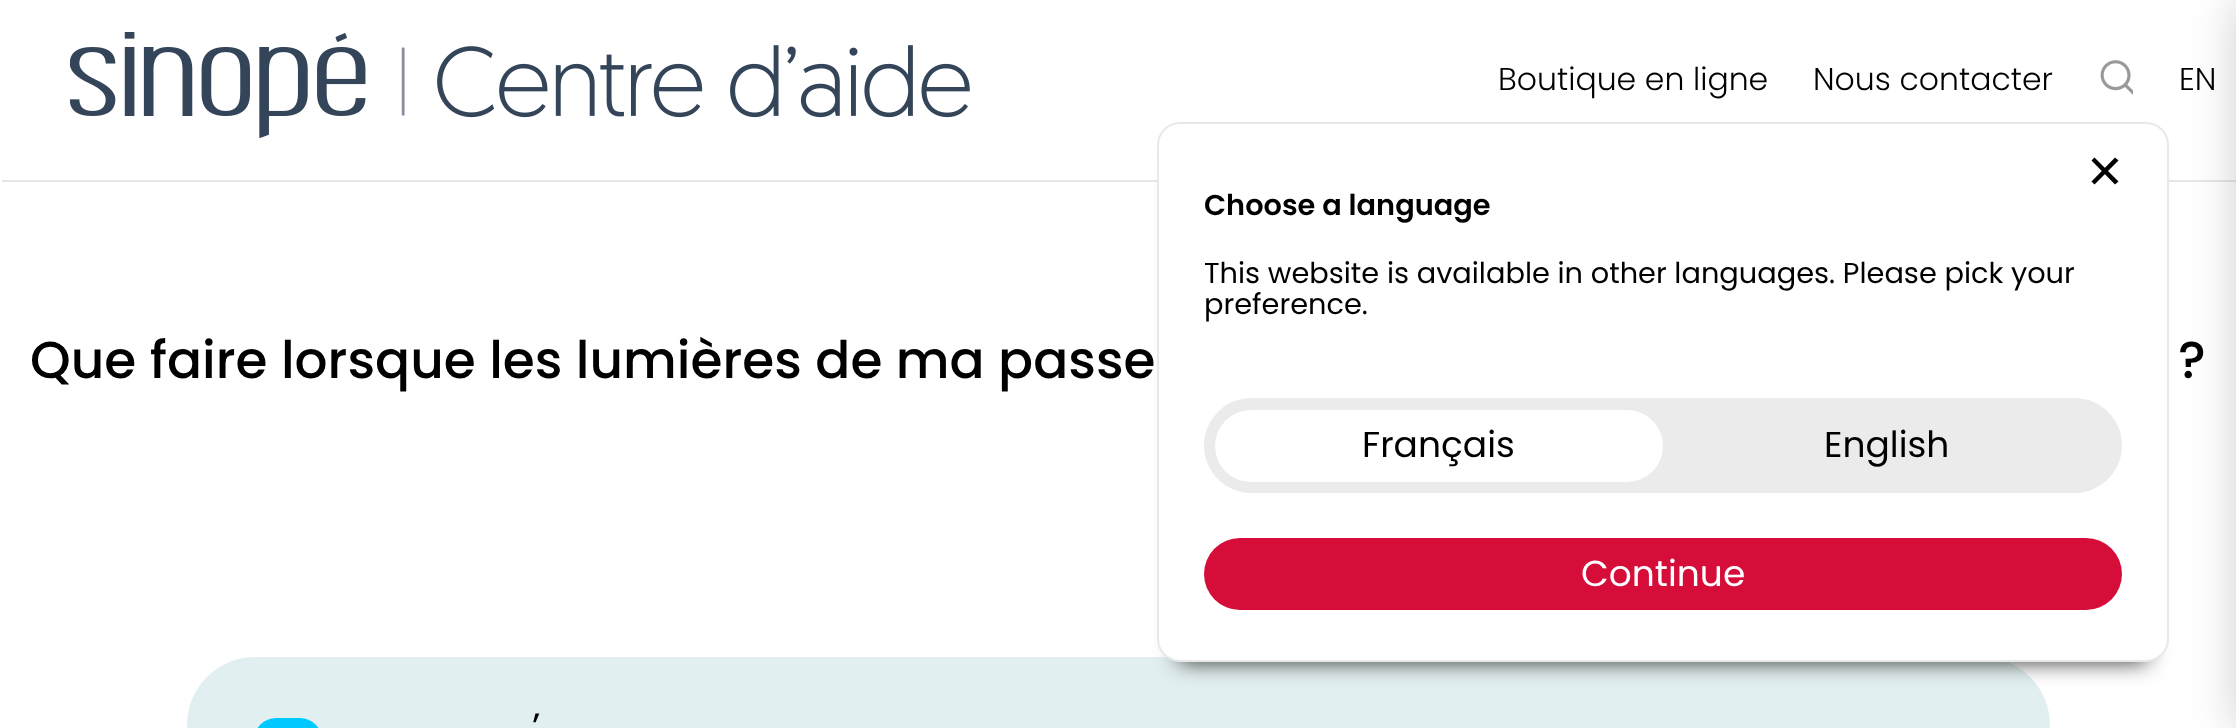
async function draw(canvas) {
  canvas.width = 2236
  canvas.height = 728
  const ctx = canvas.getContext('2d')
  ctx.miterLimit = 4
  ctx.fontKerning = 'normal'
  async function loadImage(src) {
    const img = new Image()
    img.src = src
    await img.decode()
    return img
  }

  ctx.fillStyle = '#fff'
  ctx.fillRect(0, 0, 2236, 728)
  ctx.fillStyle = '#e6e6e6'
  ctx.fillRect(2, 180, 2234, 2)
  ctx.fillStyle = '#00000033'
  ctx.filter = 'blur(22.5px)'
  ctx.beginPath()
  ctx.rect(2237, 0, 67, 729)
  ctx.fill()
  ctx.filter = 'none'
  ctx.drawImage(await loadImage('image0.png'), 70, 32, 900, 106)
  ctx.font = '300 31.5px Poppins'
  ctx.fillStyle = '#000'
  ctx.fillText('Boutique en ligne', 1498, 90)
  ctx.fillText('Nous contacter', 1813, 90)
  ctx.drawImage(await loadImage('image1.png'), 2100, 60, 33, 35)
  ctx.fillText('EN', 2179, 90)
  ctx.fillStyle = '#e2eff0'
  ctx.beginPath()
  ctx.roundRect(187, 657, 1863, 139, 68)
  ctx.fill()
  ctx.fillStyle = '#000000cc'
  ctx.filter = 'blur(11px)'
  ctx.beginPath()
  ctx.rect(1179, 167, 968, 495)
  ctx.fill()
  ctx.filter = 'none'
  ctx.fillStyle = '#fff'
  ctx.beginPath()
  ctx.roundRect(1157, 122, 1012, 540, 23)
  ctx.fill()
  ctx.beginPath()
  ctx.roundRect(1158, 123, 1010, 538, 22)
  ctx.strokeStyle = '#00000017'
  ctx.lineWidth = 2
  ctx.stroke()
  ctx.fillStyle = '#000'
  ctx.beginPath()
  ctx.moveTo(2091.5, 181.5)
  ctx.lineTo(2115, 157.5)
  ctx.lineTo(2118.5, 160.5)
  ctx.lineTo(2094.5, 184.5)
  ctx.closePath()
  ctx.fill()
  ctx.beginPath()
  ctx.moveTo(2094.5, 157.5)
  ctx.lineTo(2118.5, 181.5)
  ctx.lineTo(2115, 184.5)
  ctx.lineTo(2091.5, 160.5)
  ctx.closePath()
  ctx.fill()
  ctx.font = '600 28.8px Poppins'
  ctx.fillText('Choose a language', 1204, 215)
  ctx.font = '28.8px Poppins'
  ctx.fillText('This website is available in other languages. Please pick your', 1204, 283)
  ctx.fillText('preference.', 1204, 314)
  ctx.fillStyle = '#ebebec'
  ctx.beginPath()
  ctx.roundRect(1204, 398, 918, 95, 47.5)
  ctx.fill()
  ctx.fillStyle = '#fff'
  ctx.beginPath()
  ctx.roundRect(1215, 410, 448, 72, 36)
  ctx.fill()
  ctx.font = '36px Poppins'
  ctx.fillStyle = '#000'
  ctx.fillText('Français', 1362, 457)
  ctx.fillText('English', 1824, 457)
  ctx.fillStyle = '#d60d38'
  ctx.beginPath()
  ctx.roundRect(1204, 538, 918, 72, 36)
  ctx.fill()
  ctx.fillStyle = '#fff'
  ctx.fillText('Continue', 1581, 586)
  ctx.font = '500 51.75px Poppins'
  ctx.fillStyle = '#000'
  ctx.fillText('Que faire lorsque les lumières de ma passe', 30, 378)
  ctx.fillText('?', 2178, 378)
  ctx.fillStyle = '#00c9ff'
  ctx.beginPath()
  ctx.roundRect(254, 718, 68, 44, 33.5)
  ctx.fill()
  ctx.font = '38px Poppins'
  ctx.fillStyle = '#000'
  ctx.fillText('’', 532, 740)
}

draw(document.querySelector('canvas'))
